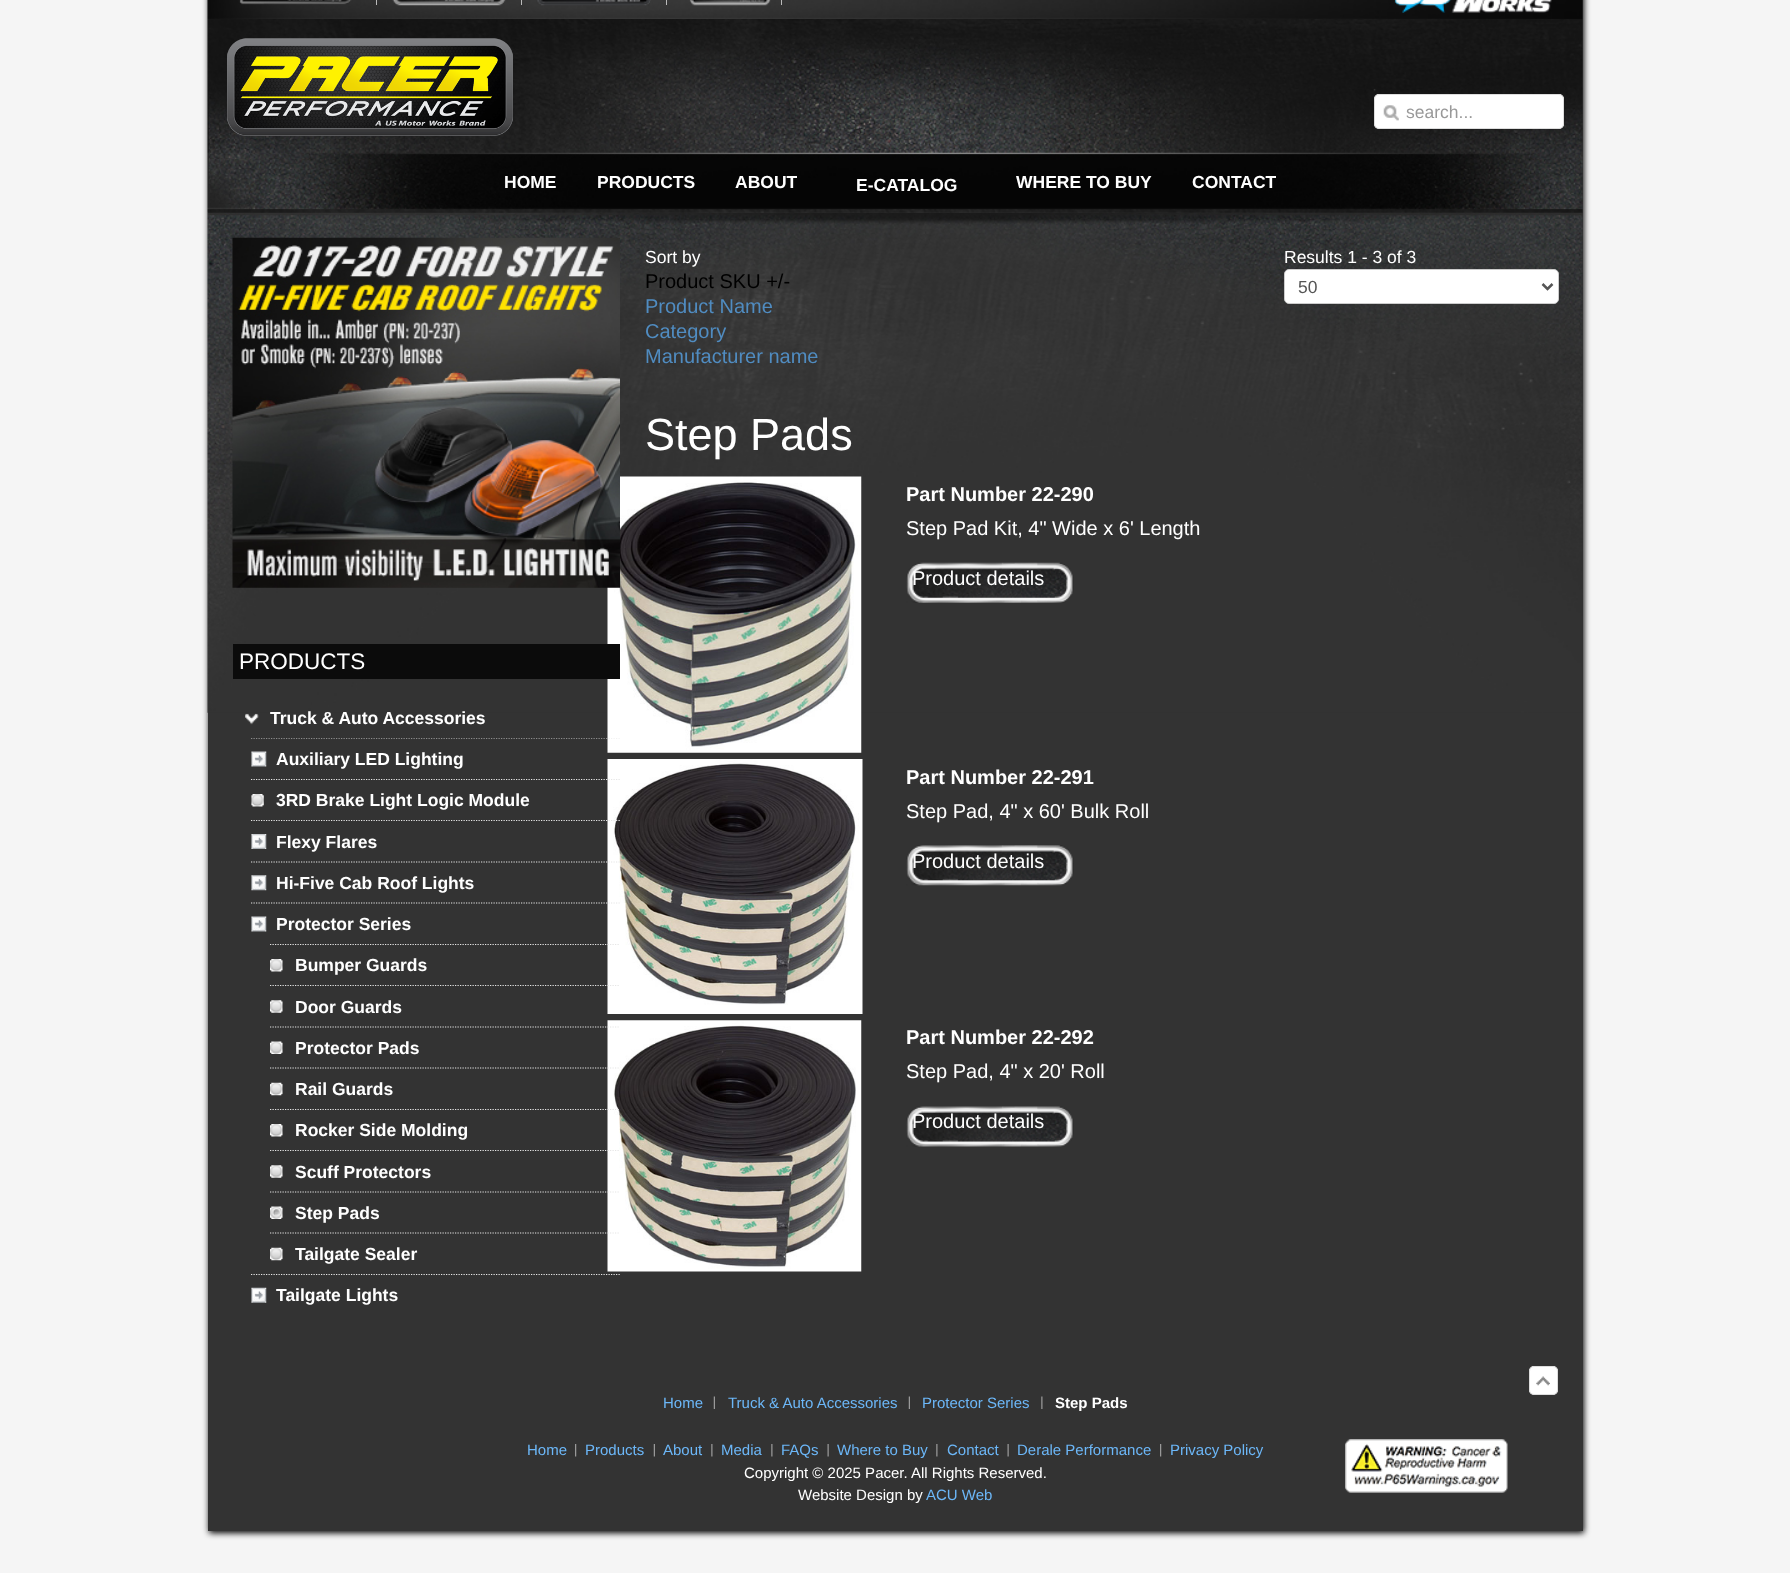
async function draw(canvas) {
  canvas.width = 1790
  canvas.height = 1573
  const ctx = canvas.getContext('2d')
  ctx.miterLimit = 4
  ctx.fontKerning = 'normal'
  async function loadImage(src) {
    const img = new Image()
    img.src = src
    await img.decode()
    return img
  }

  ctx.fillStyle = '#f5f5f5'
  ctx.fillRect(0, 0, 1790, 1573)
  ctx.fillStyle = '#000'
  ctx.filter = 'blur(3px)'
  ctx.beginPath()
  ctx.rect(209, -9, 1375, 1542)
  ctx.fill()
  ctx.filter = 'none'
  ctx.fillStyle = '#333'
  ctx.fillRect(208, 0, 1375, 1531)
  ctx.drawImage(await loadImage('image0.png'), 207, 0, 1376, 19)
  ctx.drawImage(await loadImage('image1.png'), 239, 0, 113, 5)
  ctx.fillStyle = '#bbb'
  ctx.fillRect(376, 0, 1, 5)
  ctx.drawImage(await loadImage('image2.png'), 392, 0, 114, 6)
  ctx.fillRect(521, 0, 1, 5)
  ctx.drawImage(await loadImage('image3.png'), 537, 0, 114, 6)
  ctx.fillRect(666, 0, 1, 5)
  ctx.drawImage(await loadImage('image4.png'), 689, 0, 82, 6)
  ctx.fillRect(781, 0, 1, 5)
  ctx.drawImage(await loadImage('image5.png'), 1394, 0, 158, 13)
  ctx.drawImage(await loadImage('image9.png'), 207, 212, 1376, 501)
  ctx.drawImage(await loadImage('image6.png'), 207, 19, 1376, 194)
  ctx.drawImage(await loadImage('image7.png'), 227, 38, 286, 98)
  ctx.fillStyle = '#fff'
  ctx.beginPath()
  ctx.roundRect(1374, 94, 190, 35, 5)
  ctx.fill()
  ctx.drawImage(await loadImage('image8.png'), 1383, 105, 16, 16)
  ctx.beginPath()
  ctx.roundRect(1374.5, 94.5, 189, 34, 4.5)
  ctx.strokeStyle = '#ddd'
  ctx.stroke()
  ctx.font = '17.5px Liberation Sans'
  ctx.fillStyle = '#999'
  ctx.fillText('search...', 1406, 118)
  ctx.font = 'bold 17.5px Liberation Sans'
  ctx.fillStyle = '#fff'
  ctx.fillText('HOME', 504, 188)
  ctx.fillText('PRODUCTS', 597, 188)
  ctx.fillText('ABOUT', 735, 188)
  ctx.fillText('E-CATALOG', 856, 191)
  ctx.fillText('WHERE TO BUY', 1016, 188)
  ctx.fillText('CONTACT', 1192, 188)
  ctx.drawImage(await loadImage('image23.png'), 607, 476, 255, 277)
  ctx.drawImage(await loadImage('image10.png'), 232, 237, 388, 351)
  ctx.fillStyle = '#0b0b0b'
  ctx.fillRect(233, 644, 387, 35)
  ctx.font = '22.5px Liberation Sans'
  ctx.fillStyle = '#fff'
  ctx.fillText('PRODUCTS', 239, 669)
  ctx.drawImage(await loadImage('image11.png'), 245, 713, 14, 12)
  ctx.font = 'bold 17.5px Liberation Sans'
  ctx.fillText('Truck & Auto Accessories', 270, 724)
  ctx.save()
  ctx.beginPath()
  ctx.rect(233, 738, 387, 577)
  ctx.clip()
  ctx.beginPath()
  ctx.moveTo(251, 738)
  ctx.lineTo(620, 738)
  ctx.strokeStyle = '#e6e6e6'
  ctx.lineWidth = 1.2
  ctx.setLineDash([1.25, 1.25])
  ctx.stroke()
  ctx.restore()
  ctx.drawImage(await loadImage('image12.png'), 251, 751, 16, 16)
  ctx.fillText('Auxiliary LED Lighting', 276, 765)
  ctx.drawImage(await loadImage('image25.png'), 607, 759, 256, 255)
  ctx.beginPath()
  ctx.moveTo(251, 779.5)
  ctx.lineTo(620, 779.5)
  ctx.strokeStyle = '#e6e6e6'
  ctx.lineWidth = 1.2
  ctx.setLineDash([1.25, 1.25])
  ctx.stroke()
  ctx.drawImage(await loadImage('image13.png'), 251, 794, 13, 13)
  ctx.fillText('3RD Brake Light Logic Module', 276, 806)
  ctx.beginPath()
  ctx.moveTo(251, 820.5)
  ctx.lineTo(620, 820.5)
  ctx.stroke()
  ctx.drawImage(await loadImage('image14.png'), 251, 834, 16, 15)
  ctx.fillText('Flexy Flares', 276, 848)
  ctx.beginPath()
  ctx.moveTo(251, 862)
  ctx.lineTo(620, 862)
  ctx.stroke()
  ctx.drawImage(await loadImage('image15.png'), 251, 875, 16, 16)
  ctx.fillText('Hi-Five Cab Roof Lights', 276, 889)
  ctx.beginPath()
  ctx.moveTo(251, 903)
  ctx.lineTo(620, 903)
  ctx.stroke()
  ctx.drawImage(await loadImage('image12.png'), 251, 916, 16, 16)
  ctx.fillText('Protector Series', 276, 930)
  ctx.save()
  ctx.beginPath()
  ctx.rect(251, 944, 369, 330)
  ctx.clip()
  ctx.beginPath()
  ctx.moveTo(270, 944.5)
  ctx.lineTo(620, 944.5)
  ctx.stroke()
  ctx.restore()
  ctx.drawImage(await loadImage('image16.png'), 270, 959, 13, 13)
  ctx.fillText('Bumper Guards', 295, 971)
  ctx.beginPath()
  ctx.moveTo(270, 985.5)
  ctx.lineTo(620, 985.5)
  ctx.stroke()
  ctx.drawImage(await loadImage('image17.png'), 270, 1000, 13, 13)
  ctx.fillText('Door Guards', 295, 1013)
  ctx.drawImage(await loadImage('image27.png'), 607, 1020, 255, 252)
  ctx.beginPath()
  ctx.moveTo(270, 1027)
  ctx.lineTo(620, 1027)
  ctx.stroke()
  ctx.drawImage(await loadImage('image18.png'), 270, 1041, 13, 13)
  ctx.fillText('Protector Pads', 295, 1054)
  ctx.beginPath()
  ctx.moveTo(270, 1068)
  ctx.lineTo(620, 1068)
  ctx.stroke()
  ctx.drawImage(await loadImage('image19.png'), 270, 1082, 13, 14)
  ctx.fillText('Rail Guards', 295, 1095)
  ctx.beginPath()
  ctx.moveTo(270, 1109.5)
  ctx.lineTo(620, 1109.5)
  ctx.stroke()
  ctx.drawImage(await loadImage('image20.png'), 270, 1124, 13, 13)
  ctx.fillText('Rocker Side Molding', 295, 1136)
  ctx.beginPath()
  ctx.moveTo(270, 1150.5)
  ctx.lineTo(620, 1150.5)
  ctx.stroke()
  ctx.drawImage(await loadImage('image17.png'), 270, 1165, 13, 13)
  ctx.fillText('Scuff Protectors', 295, 1178)
  ctx.beginPath()
  ctx.moveTo(270, 1192)
  ctx.lineTo(620, 1192)
  ctx.stroke()
  ctx.drawImage(await loadImage('image21.png'), 270, 1206, 13, 13)
  ctx.fillText('Step Pads', 295, 1219)
  ctx.beginPath()
  ctx.moveTo(270, 1233)
  ctx.lineTo(620, 1233)
  ctx.stroke()
  ctx.drawImage(await loadImage('image19.png'), 270, 1247, 13, 14)
  ctx.fillText('Tailgate Sealer', 295, 1260)
  ctx.beginPath()
  ctx.moveTo(251, 1274.5)
  ctx.lineTo(620, 1274.5)
  ctx.stroke()
  ctx.drawImage(await loadImage('image22.png'), 251, 1287, 16, 16)
  ctx.fillText('Tailgate Lights', 276, 1301)
  ctx.font = '17.5px Liberation Sans'
  ctx.fillText('Sort by', 645, 263)
  ctx.font = '20px Liberation Sans'
  ctx.fillStyle = '#000'
  ctx.fillText('Product SKU +/-', 645, 288)
  ctx.fillStyle = '#508cc1'
  ctx.fillText('Product Name', 645, 313)
  ctx.fillText('Category', 645, 338)
  ctx.fillText('Manufacturer name', 645, 363)
  ctx.font = '17.5px Liberation Sans'
  ctx.fillStyle = '#fff'
  ctx.fillText('Results 1 - 3 of 3', 1284, 263)
  ctx.beginPath()
  ctx.roundRect(1284.5, 269.5, 274, 34, 4.5)
  ctx.fill()
  ctx.strokeStyle = '#ccc'
  ctx.lineWidth = 1
  ctx.setLineDash([])
  ctx.stroke()
  ctx.beginPath()
  ctx.moveTo(1542.5, 284)
  ctx.lineTo(1547.5, 289)
  ctx.lineTo(1552.5, 284)
  ctx.strokeStyle = '#555'
  ctx.lineWidth = 2.5
  ctx.stroke()
  ctx.fillStyle = '#555'
  ctx.fillText('50', 1298, 293)
  ctx.font = '45px Liberation Sans'
  ctx.fillStyle = '#fff'
  ctx.fillText('Step Pads', 645, 450)
  ctx.font = 'bold 20px Liberation Sans'
  ctx.fillText('Part Number 22-290', 906, 501)
  ctx.font = '20px Liberation Sans'
  ctx.fillText('Step Pad Kit, 4" Wide x 6\' Length', 906, 535)
  ctx.drawImage(await loadImage('image24.png'), 906, 562, 168, 41)
  ctx.fillText('Product details', 912, 585)
  ctx.font = 'bold 20px Liberation Sans'
  ctx.fillText('Part Number 22-291', 906, 784)
  ctx.font = '20px Liberation Sans'
  ctx.fillText('Step Pad, 4" x 60\' Bulk Roll', 906, 818)
  ctx.drawImage(await loadImage('image26.png'), 906, 845, 168, 41)
  ctx.fillText('Product details', 912, 868)
  ctx.font = 'bold 20px Liberation Sans'
  ctx.fillText('Part Number 22-292', 906, 1044)
  ctx.font = '20px Liberation Sans'
  ctx.fillText('Step Pad, 4" x 20\' Roll', 906, 1078)
  ctx.drawImage(await loadImage('image28.png'), 906, 1106, 168, 41)
  ctx.fillText('Product details', 912, 1128)
  ctx.beginPath()
  ctx.roundRect(1529, 1366, 29, 29, 5)
  ctx.fill()
  ctx.drawImage(await loadImage('image29.png'), 1536, 1376, 14, 10)
  ctx.beginPath()
  ctx.roundRect(1529.5, 1366.5, 28, 28, 4.5)
  ctx.strokeStyle = '#ddd'
  ctx.lineWidth = 1
  ctx.stroke()
  ctx.drawImage(await loadImage('image30.png'), 713, 1396, 2, 13)
  ctx.font = '15px Liberation Sans'
  ctx.fillStyle = '#6cb7f8'
  ctx.fillText('Home', 663, 1408)
  ctx.drawImage(await loadImage('image30.png'), 908, 1396, 2, 13)
  ctx.fillText('Truck & Auto Accessories', 728, 1408)
  ctx.drawImage(await loadImage('image31.png'), 1041, 1396, 2, 13)
  ctx.fillText('Protector Series', 922, 1408)
  ctx.font = 'bold 15px Liberation Sans'
  ctx.fillStyle = '#fff'
  ctx.fillText('Step Pads', 1055, 1408)
  ctx.font = '15px Liberation Sans'
  ctx.fillStyle = '#6cb7f8'
  ctx.fillText('Home', 527, 1455)
  ctx.drawImage(await loadImage('image32.png'), 575, 1444, 2, 13)
  ctx.fillText('Products', 585, 1455)
  ctx.drawImage(await loadImage('image33.png'), 653, 1444, 2, 13)
  ctx.fillText('About', 663, 1455)
  ctx.drawImage(await loadImage('image34.png'), 711, 1444, 2, 13)
  ctx.fillText('Media', 721, 1455)
  ctx.drawImage(await loadImage('image34.png'), 771, 1444, 2, 13)
  ctx.fillText('FAQs', 781, 1455)
  ctx.drawImage(await loadImage('image35.png'), 827, 1444, 2, 13)
  ctx.fillText('Where to Buy', 837, 1455)
  ctx.drawImage(await loadImage('image34.png'), 936, 1444, 2, 13)
  ctx.fillText('Contact', 947, 1455)
  ctx.drawImage(await loadImage('image35.png'), 1007, 1444, 2, 13)
  ctx.fillText('Derale Performance', 1017, 1455)
  ctx.drawImage(await loadImage('image32.png'), 1160, 1444, 2, 13)
  ctx.fillText('Privacy Policy', 1170, 1455)
  ctx.drawImage(await loadImage('image36.png'), 1345, 1439, 163, 54)
  ctx.fillStyle = '#fff'
  ctx.fillText('Copyright © 2025 Pacer. All Rights Reserved.', 744, 1478)
  ctx.fillText('Website Design by', 798, 1500)
  ctx.fillStyle = '#6cb7f8'
  ctx.fillText('ACU Web', 926, 1500)
}

draw(document.querySelector('canvas'))
